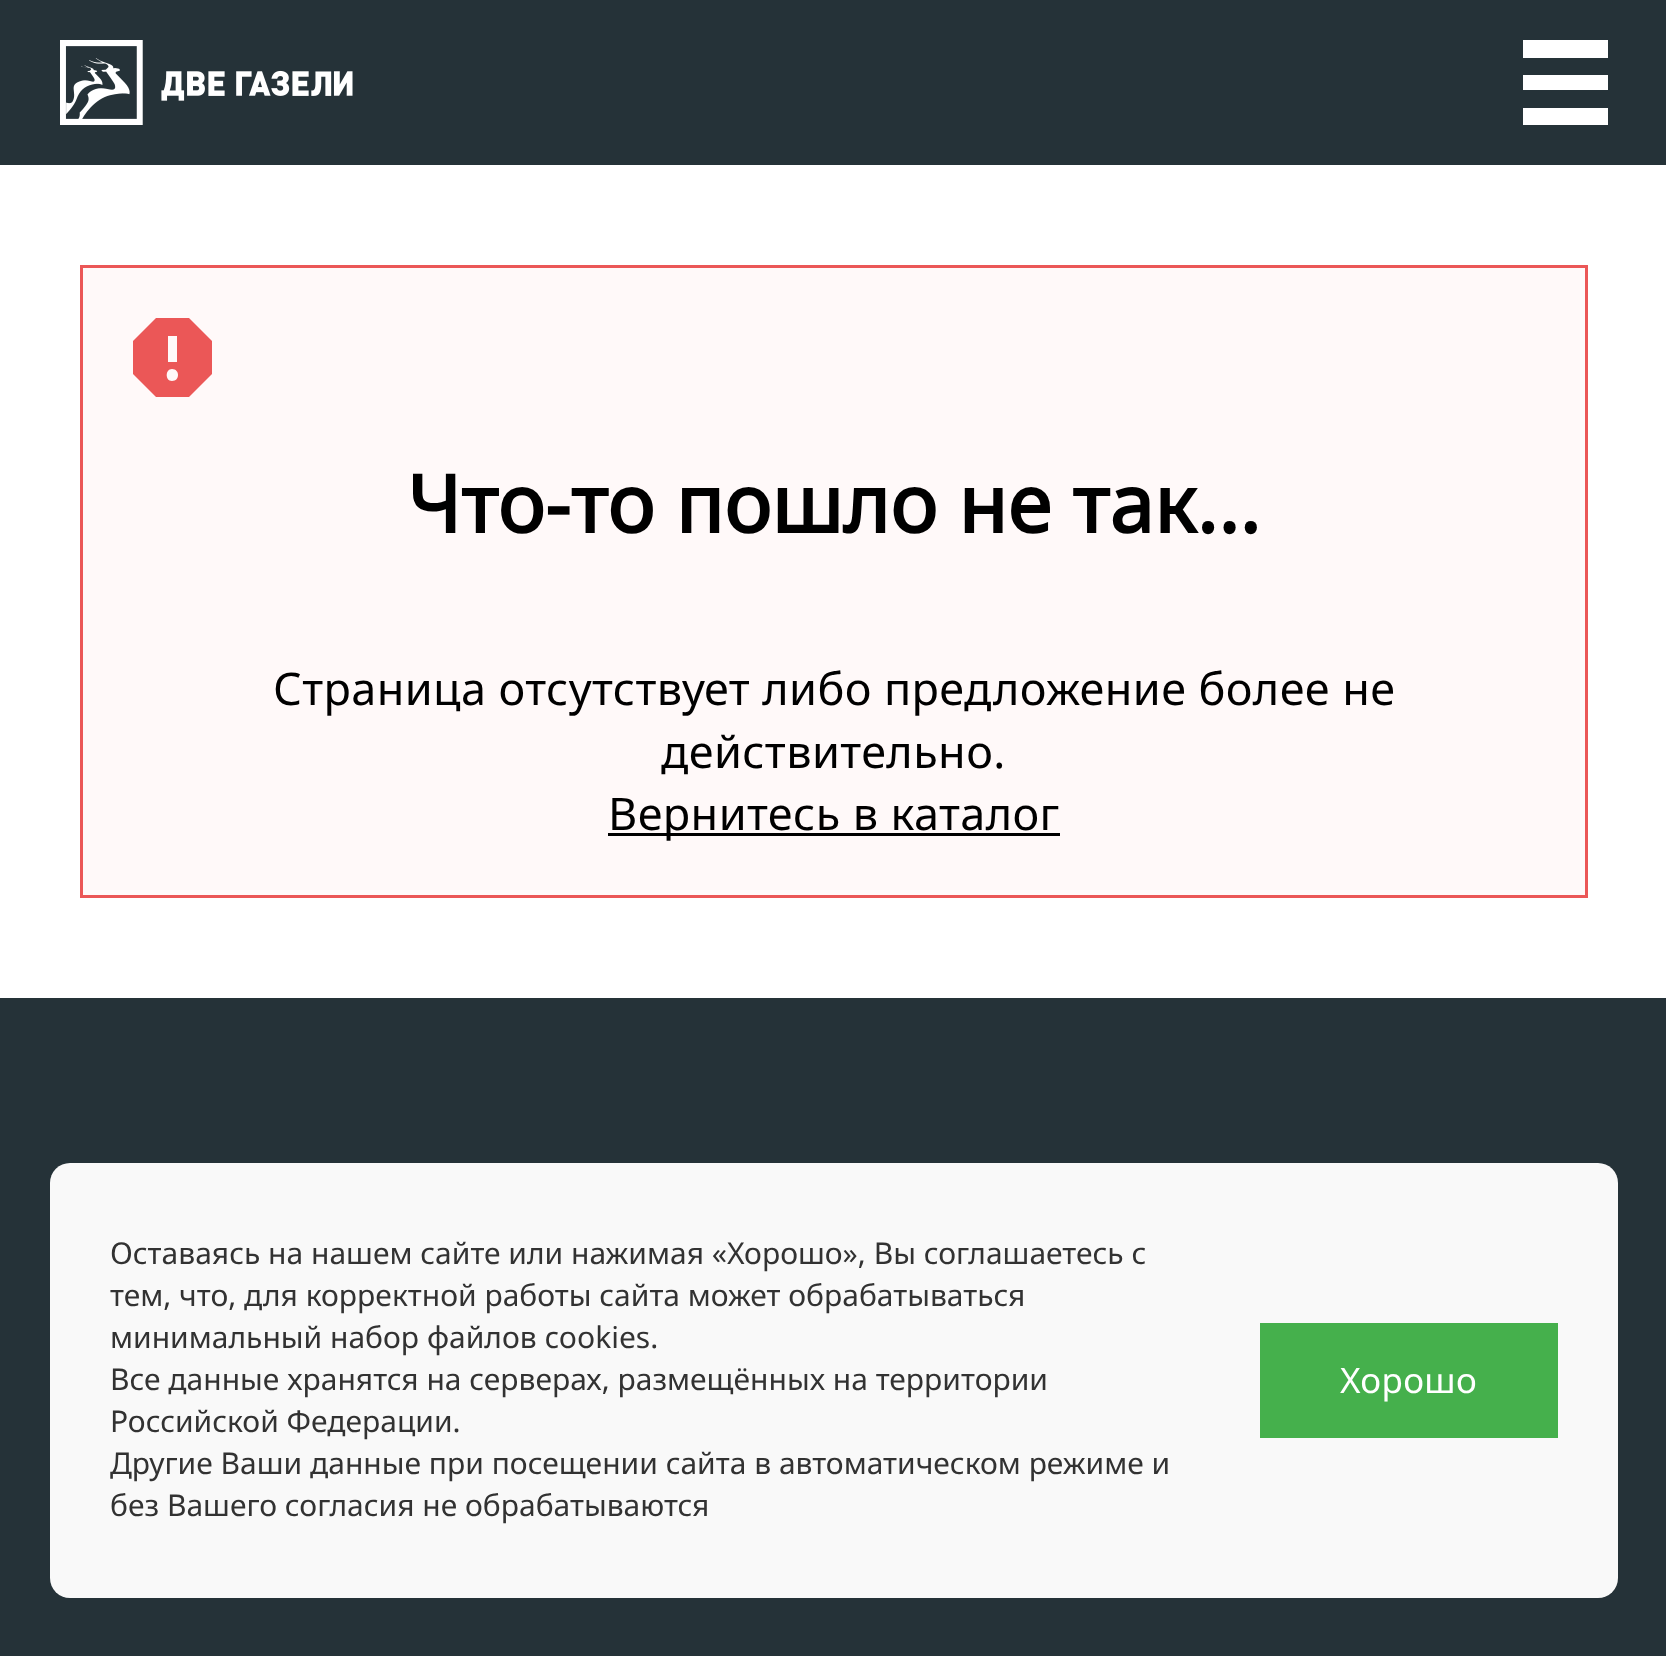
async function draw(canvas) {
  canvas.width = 1666
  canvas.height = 1656
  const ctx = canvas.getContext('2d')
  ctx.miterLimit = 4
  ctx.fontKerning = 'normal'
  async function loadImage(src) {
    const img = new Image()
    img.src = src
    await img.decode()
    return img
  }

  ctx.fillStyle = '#fff'
  ctx.fillRect(0, 0, 1666, 1656)
  ctx.fillStyle = '#253238'
  ctx.fillRect(0, 0, 1666, 165)
  ctx.drawImage(await loadImage('image0.png'), 60, 40, 293, 85)
  ctx.fillStyle = '#fff'
  ctx.fillRect(1523, 40, 85, 85)
  ctx.fillStyle = '#253238'
  ctx.fillRect(1523, 90, 85, 18)
  ctx.fillRect(1523, 58, 85, 17)
  ctx.fillStyle = '#fff9f9'
  ctx.beginPath()
  ctx.rect(81.5, 266.5, 1505, 630)
  ctx.fill()
  ctx.strokeStyle = '#eb5757'
  ctx.lineWidth = 3
  ctx.stroke()
  ctx.fillStyle = '#eb5757'
  ctx.beginPath()
  ctx.moveTo(189, 318)
  ctx.lineTo(156, 318)
  ctx.lineTo(133, 341)
  ctx.lineTo(133, 374)
  ctx.lineTo(156, 397)
  ctx.lineTo(189, 397)
  ctx.lineTo(212, 374)
  ctx.lineTo(212, 341)
  ctx.closePath()
  ctx.moveTo(172, 381)
  ctx.bezierCurveTo(165, 381, 165, 369, 172, 369)
  ctx.bezierCurveTo(180, 369, 180, 381, 172, 381)
  ctx.closePath()
  ctx.moveTo(177, 362)
  ctx.lineTo(168, 362)
  ctx.lineTo(168, 336)
  ctx.lineTo(177, 336)
  ctx.closePath()
  ctx.fill()
  ctx.font = 'bold 80px Noto Sans'
  ctx.fillStyle = '#000'
  ctx.fillText('Что-то пошло не так...', 407, 533)
  ctx.letterSpacing = '0.4px'
  ctx.font = '45px Noto Sans'
  ctx.fillText('Страница отсутствует либо предложение более не', 273, 705)
  ctx.fillText('действительно.', 661, 768)
  ctx.fillRect(608, 833, 452, 3)
  ctx.fillText('Вернитесь в каталог', 608, 830)
  ctx.fillStyle = '#253238'
  ctx.fillRect(0, 998, 1666, 658)
  ctx.fillStyle = '#f9f9f9'
  ctx.beginPath()
  ctx.roundRect(50, 1163, 1568, 435, 20)
  ctx.fill()
  ctx.letterSpacing = '0px'
  ctx.font = '30px Noto Sans'
  ctx.fillStyle = '#323232'
  ctx.fillText('Оставаясь на нашем сайте или нажимая «Хорошо», Вы соглашаетесь с', 110, 1264)
  ctx.fillText('тем, что, для корректной работы сайта может обрабатываться', 110, 1306)
  ctx.fillText('минимальный набор файлов cookies.', 110, 1348)
  ctx.fillText('Все данные хранятся на серверах, размещённых на территории', 110, 1390)
  ctx.fillText('Российской Федерации.', 110, 1432)
  ctx.fillText('Другие Ваши данные при посещении сайта в автоматическом режиме и', 110, 1474)
  ctx.fillText('без Вашего согласия не обрабатываются', 110, 1516)
  ctx.fillStyle = '#45b04c'
  ctx.fillRect(1260, 1323, 298, 115)
  ctx.letterSpacing = '0.4px'
  ctx.font = '35px Noto Sans'
  ctx.fillStyle = '#fff'
  ctx.fillText('Хорошо', 1340, 1393)
}

draw(document.querySelector('canvas'))
